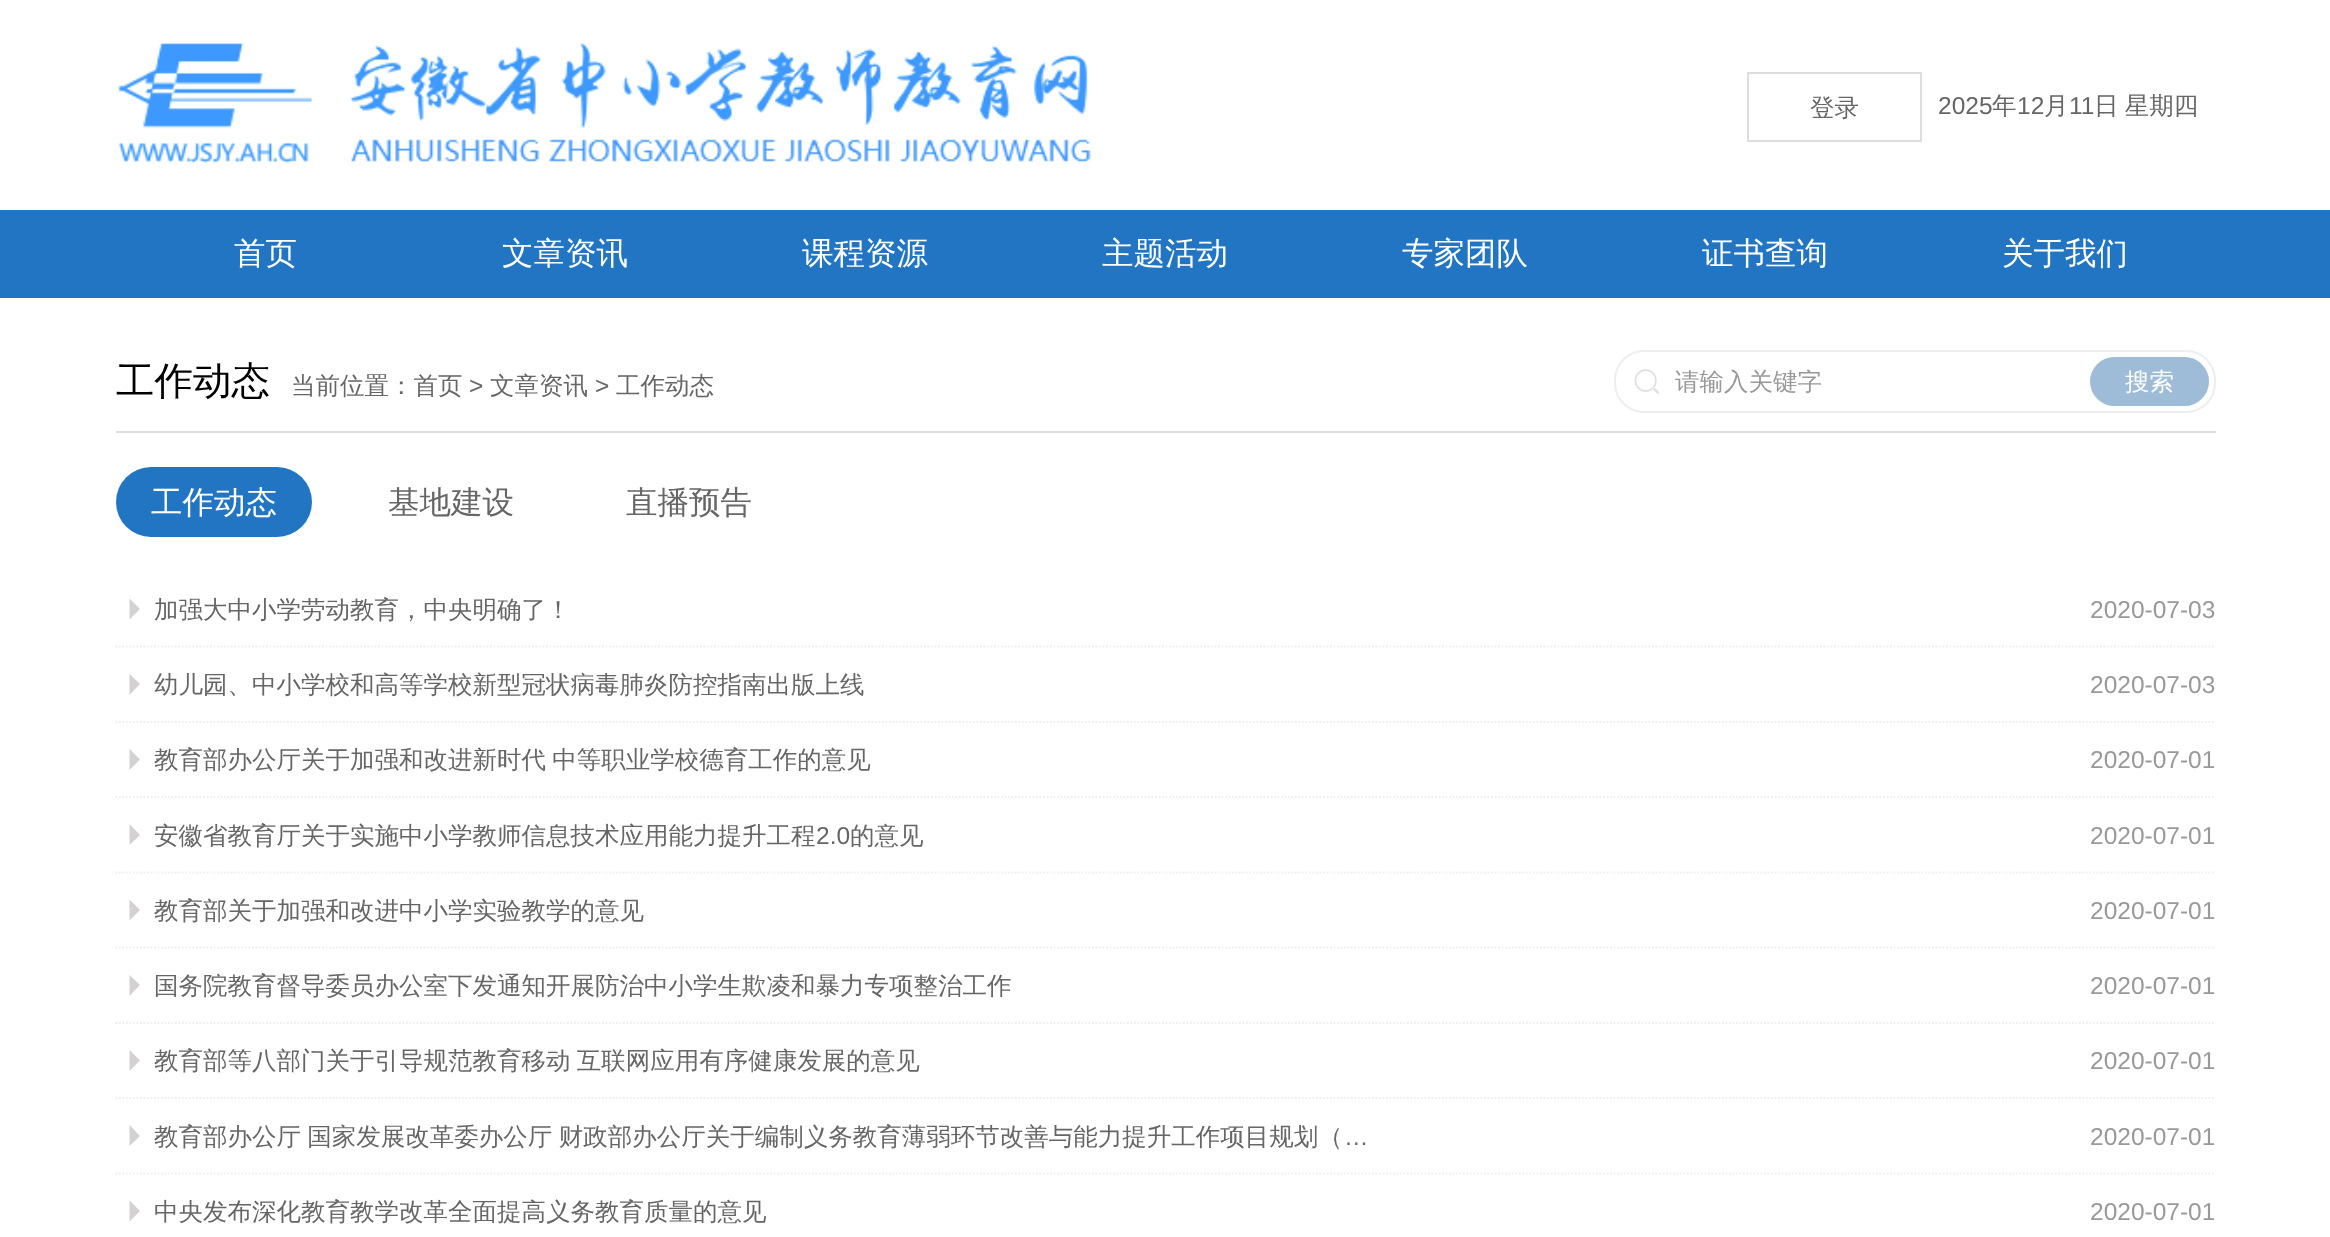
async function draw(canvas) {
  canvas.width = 2330
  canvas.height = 1237
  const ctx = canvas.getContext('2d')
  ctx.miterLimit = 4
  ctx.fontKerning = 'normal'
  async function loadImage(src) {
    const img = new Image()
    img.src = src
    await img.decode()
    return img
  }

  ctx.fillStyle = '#fff'
  ctx.fillRect(0, 0, 2330, 1237)
  ctx.drawImage(await loadImage('image0.png'), 118, 43, 973, 121)
  ctx.strokeStyle = '#ddd'
  ctx.lineWidth = 2
  ctx.strokeRect(1748, 73, 173, 68)
  ctx.font = '500 24.5px WenQuanYi Zen Hei'
  ctx.fillStyle = '#666'
  ctx.fillText('登录', 1810, 116)
  ctx.font = '24.5px Liberation Sans'
  ctx.fillText('2025', 1938, 114)
  ctx.font = '500 24.5px WenQuanYi Zen Hei'
  ctx.fillText('年', 1992, 114)
  ctx.font = '24.5px Liberation Sans'
  ctx.fillText('12', 2017, 114)
  ctx.font = '500 24.5px WenQuanYi Zen Hei'
  ctx.fillText('月', 2044, 114)
  ctx.font = '24.5px Liberation Sans'
  ctx.fillText('11', 2069, 114)
  ctx.wordSpacing = '-1px'
  ctx.font = '500 24.5px WenQuanYi Zen Hei'
  ctx.fillText('日 星期四', 2094, 114)
  ctx.fillStyle = '#2275c3'
  ctx.fillRect(0, 210, 2330, 88)
  ctx.wordSpacing = '0px'
  ctx.font = '500 31.5px WenQuanYi Zen Hei'
  ctx.fillStyle = '#fff'
  ctx.fillText('首页', 234, 264)
  ctx.fillText('文章资讯', 502, 264)
  ctx.fillText('课程资源', 802, 264)
  ctx.fillText('主题活动', 1102, 264)
  ctx.fillText('专家团队', 1402, 264)
  ctx.fillText('证书查询', 1702, 264)
  ctx.fillText('关于我们', 2002, 264)
  ctx.fillStyle = '#ddd'
  ctx.fillRect(116, 431, 2100, 2)
  ctx.font = '500 38.5px WenQuanYi Zen Hei'
  ctx.fillStyle = '#000'
  ctx.fillText('工作动态', 116, 394)
  ctx.font = '500 24.5px WenQuanYi Zen Hei'
  ctx.fillStyle = '#666'
  ctx.fillText('当前位置：首页', 291, 394)
  ctx.font = '24.5px Liberation Sans'
  ctx.fillText('>', 469, 394)
  ctx.font = '500 24.5px WenQuanYi Zen Hei'
  ctx.fillText('文章资讯', 490, 394)
  ctx.font = '24.5px Liberation Sans'
  ctx.fillText('>', 595, 394)
  ctx.font = '500 24.5px WenQuanYi Zen Hei'
  ctx.fillText('工作动态', 616, 394)
  ctx.beginPath()
  ctx.roundRect(1615, 351, 600, 61, 29)
  ctx.strokeStyle = '#eee'
  ctx.stroke()
  ctx.drawImage(await loadImage('image1.png'), 1634, 369, 25, 25)
  ctx.fillStyle = '#999'
  ctx.fillText('请输入关键字', 1675, 390)
  ctx.fillStyle = '#9ebcd8'
  ctx.beginPath()
  ctx.roundRect(2090, 357, 119, 49, 24.5)
  ctx.fill()
  ctx.fillStyle = '#fff'
  ctx.fillText('搜索', 2125, 390)
  ctx.fillStyle = '#2275c3'
  ctx.beginPath()
  ctx.roundRect(116, 467, 196, 70, 35)
  ctx.fill()
  ctx.font = '500 31.5px WenQuanYi Zen Hei'
  ctx.fillStyle = '#fff'
  ctx.fillText('工作动态', 151, 513)
  ctx.fillStyle = '#666'
  ctx.fillText('基地建设', 388, 513)
  ctx.fillText('直播预告', 626, 513)
  ctx.beginPath()
  ctx.moveTo(115.5, 646.5)
  ctx.lineTo(2215.5, 646.5)
  ctx.lineWidth = 1.8
  ctx.setLineDash([1.75, 1.75])
  ctx.stroke()
  ctx.fillStyle = '#d3d1d1'
  ctx.beginPath()
  ctx.moveTo(129.5, 619.5)
  ctx.lineTo(129.5, 598.5)
  ctx.lineTo(140, 609)
  ctx.closePath()
  ctx.fill()
  ctx.font = '500 24.5px WenQuanYi Zen Hei'
  ctx.fillStyle = '#666'
  ctx.fillText('加强大中小学劳动教育，中央明确了！', 154, 618)
  ctx.font = '24.5px Liberation Sans'
  ctx.fillStyle = '#999'
  ctx.fillText('2020-07-03', 2090, 618)
  ctx.beginPath()
  ctx.moveTo(115.5, 722)
  ctx.lineTo(2215.5, 722)
  ctx.stroke()
  ctx.fillStyle = '#d3d1d1'
  ctx.beginPath()
  ctx.moveTo(129.5, 695)
  ctx.lineTo(129.5, 674)
  ctx.lineTo(140, 684)
  ctx.closePath()
  ctx.fill()
  ctx.font = '500 24.5px WenQuanYi Zen Hei'
  ctx.fillStyle = '#666'
  ctx.fillText('幼儿园、中小学校和高等学校新型冠状病毒肺炎防控指南出版上线', 154, 693)
  ctx.font = '24.5px Liberation Sans'
  ctx.fillStyle = '#999'
  ctx.fillText('2020-07-03', 2090, 693)
  ctx.beginPath()
  ctx.moveTo(115.5, 797)
  ctx.lineTo(2215.5, 797)
  ctx.stroke()
  ctx.fillStyle = '#d3d1d1'
  ctx.beginPath()
  ctx.moveTo(129.5, 770)
  ctx.lineTo(129.5, 749)
  ctx.lineTo(140, 759.5)
  ctx.closePath()
  ctx.fill()
  ctx.wordSpacing = '-1px'
  ctx.font = '500 24.5px WenQuanYi Zen Hei'
  ctx.fillStyle = '#666'
  ctx.fillText('教育部办公厅关于加强和改进新时代 中等职业学校德育工作的意见', 154, 768)
  ctx.wordSpacing = '0px'
  ctx.font = '24.5px Liberation Sans'
  ctx.fillStyle = '#999'
  ctx.fillText('2020-07-01', 2090, 768)
  ctx.beginPath()
  ctx.moveTo(115.5, 872.5)
  ctx.lineTo(2215.5, 872.5)
  ctx.stroke()
  ctx.fillStyle = '#d3d1d1'
  ctx.beginPath()
  ctx.moveTo(129.5, 845)
  ctx.lineTo(129.5, 824)
  ctx.lineTo(140, 835)
  ctx.closePath()
  ctx.fill()
  ctx.font = '500 24.5px WenQuanYi Zen Hei'
  ctx.fillStyle = '#666'
  ctx.fillText('安徽省教育厅关于实施中小学教师信息技术应用能力提升工程', 154, 844)
  ctx.font = '24.5px Liberation Sans'
  ctx.fillText('2.0', 816, 844)
  ctx.font = '500 24.5px WenQuanYi Zen Hei'
  ctx.fillText('的意见', 850, 844)
  ctx.font = '24.5px Liberation Sans'
  ctx.fillStyle = '#999'
  ctx.fillText('2020-07-01', 2090, 844)
  ctx.beginPath()
  ctx.moveTo(115.5, 947.5)
  ctx.lineTo(2215.5, 947.5)
  ctx.stroke()
  ctx.fillStyle = '#d3d1d1'
  ctx.beginPath()
  ctx.moveTo(129.5, 920.5)
  ctx.lineTo(129.5, 899.5)
  ctx.lineTo(140, 910)
  ctx.closePath()
  ctx.fill()
  ctx.font = '500 24.5px WenQuanYi Zen Hei'
  ctx.fillStyle = '#666'
  ctx.fillText('教育部关于加强和改进中小学实验教学的意见', 154, 919)
  ctx.font = '24.5px Liberation Sans'
  ctx.fillStyle = '#999'
  ctx.fillText('2020-07-01', 2090, 919)
  ctx.beginPath()
  ctx.moveTo(115.5, 1023)
  ctx.lineTo(2215.5, 1023)
  ctx.stroke()
  ctx.fillStyle = '#d3d1d1'
  ctx.beginPath()
  ctx.moveTo(129.5, 996)
  ctx.lineTo(129.5, 975)
  ctx.lineTo(140, 985)
  ctx.closePath()
  ctx.fill()
  ctx.font = '500 24.5px WenQuanYi Zen Hei'
  ctx.fillStyle = '#666'
  ctx.fillText('国务院教育督导委员办公室下发通知开展防治中小学生欺凌和暴力专项整治工作', 154, 994)
  ctx.font = '24.5px Liberation Sans'
  ctx.fillStyle = '#999'
  ctx.fillText('2020-07-01', 2090, 994)
  ctx.beginPath()
  ctx.moveTo(115.5, 1098)
  ctx.lineTo(2215.5, 1098)
  ctx.stroke()
  ctx.fillStyle = '#d3d1d1'
  ctx.beginPath()
  ctx.moveTo(129.5, 1071)
  ctx.lineTo(129.5, 1050)
  ctx.lineTo(140, 1060.5)
  ctx.closePath()
  ctx.fill()
  ctx.wordSpacing = '-1px'
  ctx.font = '500 24.5px WenQuanYi Zen Hei'
  ctx.fillStyle = '#666'
  ctx.fillText('教育部等八部门关于引导规范教育移动 互联网应用有序健康发展的意见', 154, 1069)
  ctx.wordSpacing = '0px'
  ctx.font = '24.5px Liberation Sans'
  ctx.fillStyle = '#999'
  ctx.fillText('2020-07-01', 2090, 1069)
  ctx.beginPath()
  ctx.moveTo(115.5, 1173.5)
  ctx.lineTo(2215.5, 1173.5)
  ctx.stroke()
  ctx.fillStyle = '#d3d1d1'
  ctx.beginPath()
  ctx.moveTo(129.5, 1146)
  ctx.lineTo(129.5, 1125)
  ctx.lineTo(140, 1136)
  ctx.closePath()
  ctx.fill()
  ctx.wordSpacing = '-1px'
  ctx.font = '500 24.5px WenQuanYi Zen Hei'
  ctx.fillStyle = '#666'
  ctx.fillText('教育部办公厅 国家发展改革委办公厅 财政部办公厅关于编制义务教育薄弱环节改善与能力提升工作项目规划（', 154, 1145)
  ctx.wordSpacing = '0px'
  ctx.font = '24.5px Liberation Sans'
  ctx.fillText('…', 1344, 1145)
  ctx.fillStyle = '#999'
  ctx.fillText('2020-07-01', 2090, 1145)
  ctx.fillStyle = '#d3d1d1'
  ctx.beginPath()
  ctx.moveTo(129.5, 1221.5)
  ctx.lineTo(129.5, 1200.5)
  ctx.lineTo(140, 1211)
  ctx.closePath()
  ctx.fill()
  ctx.font = '500 24.5px WenQuanYi Zen Hei'
  ctx.fillStyle = '#666'
  ctx.fillText('中央发布深化教育教学改革全面提高义务教育质量的意见', 154, 1220)
  ctx.font = '24.5px Liberation Sans'
  ctx.fillStyle = '#999'
  ctx.fillText('2020-07-01', 2090, 1220)
}

draw(document.querySelector('canvas'))
